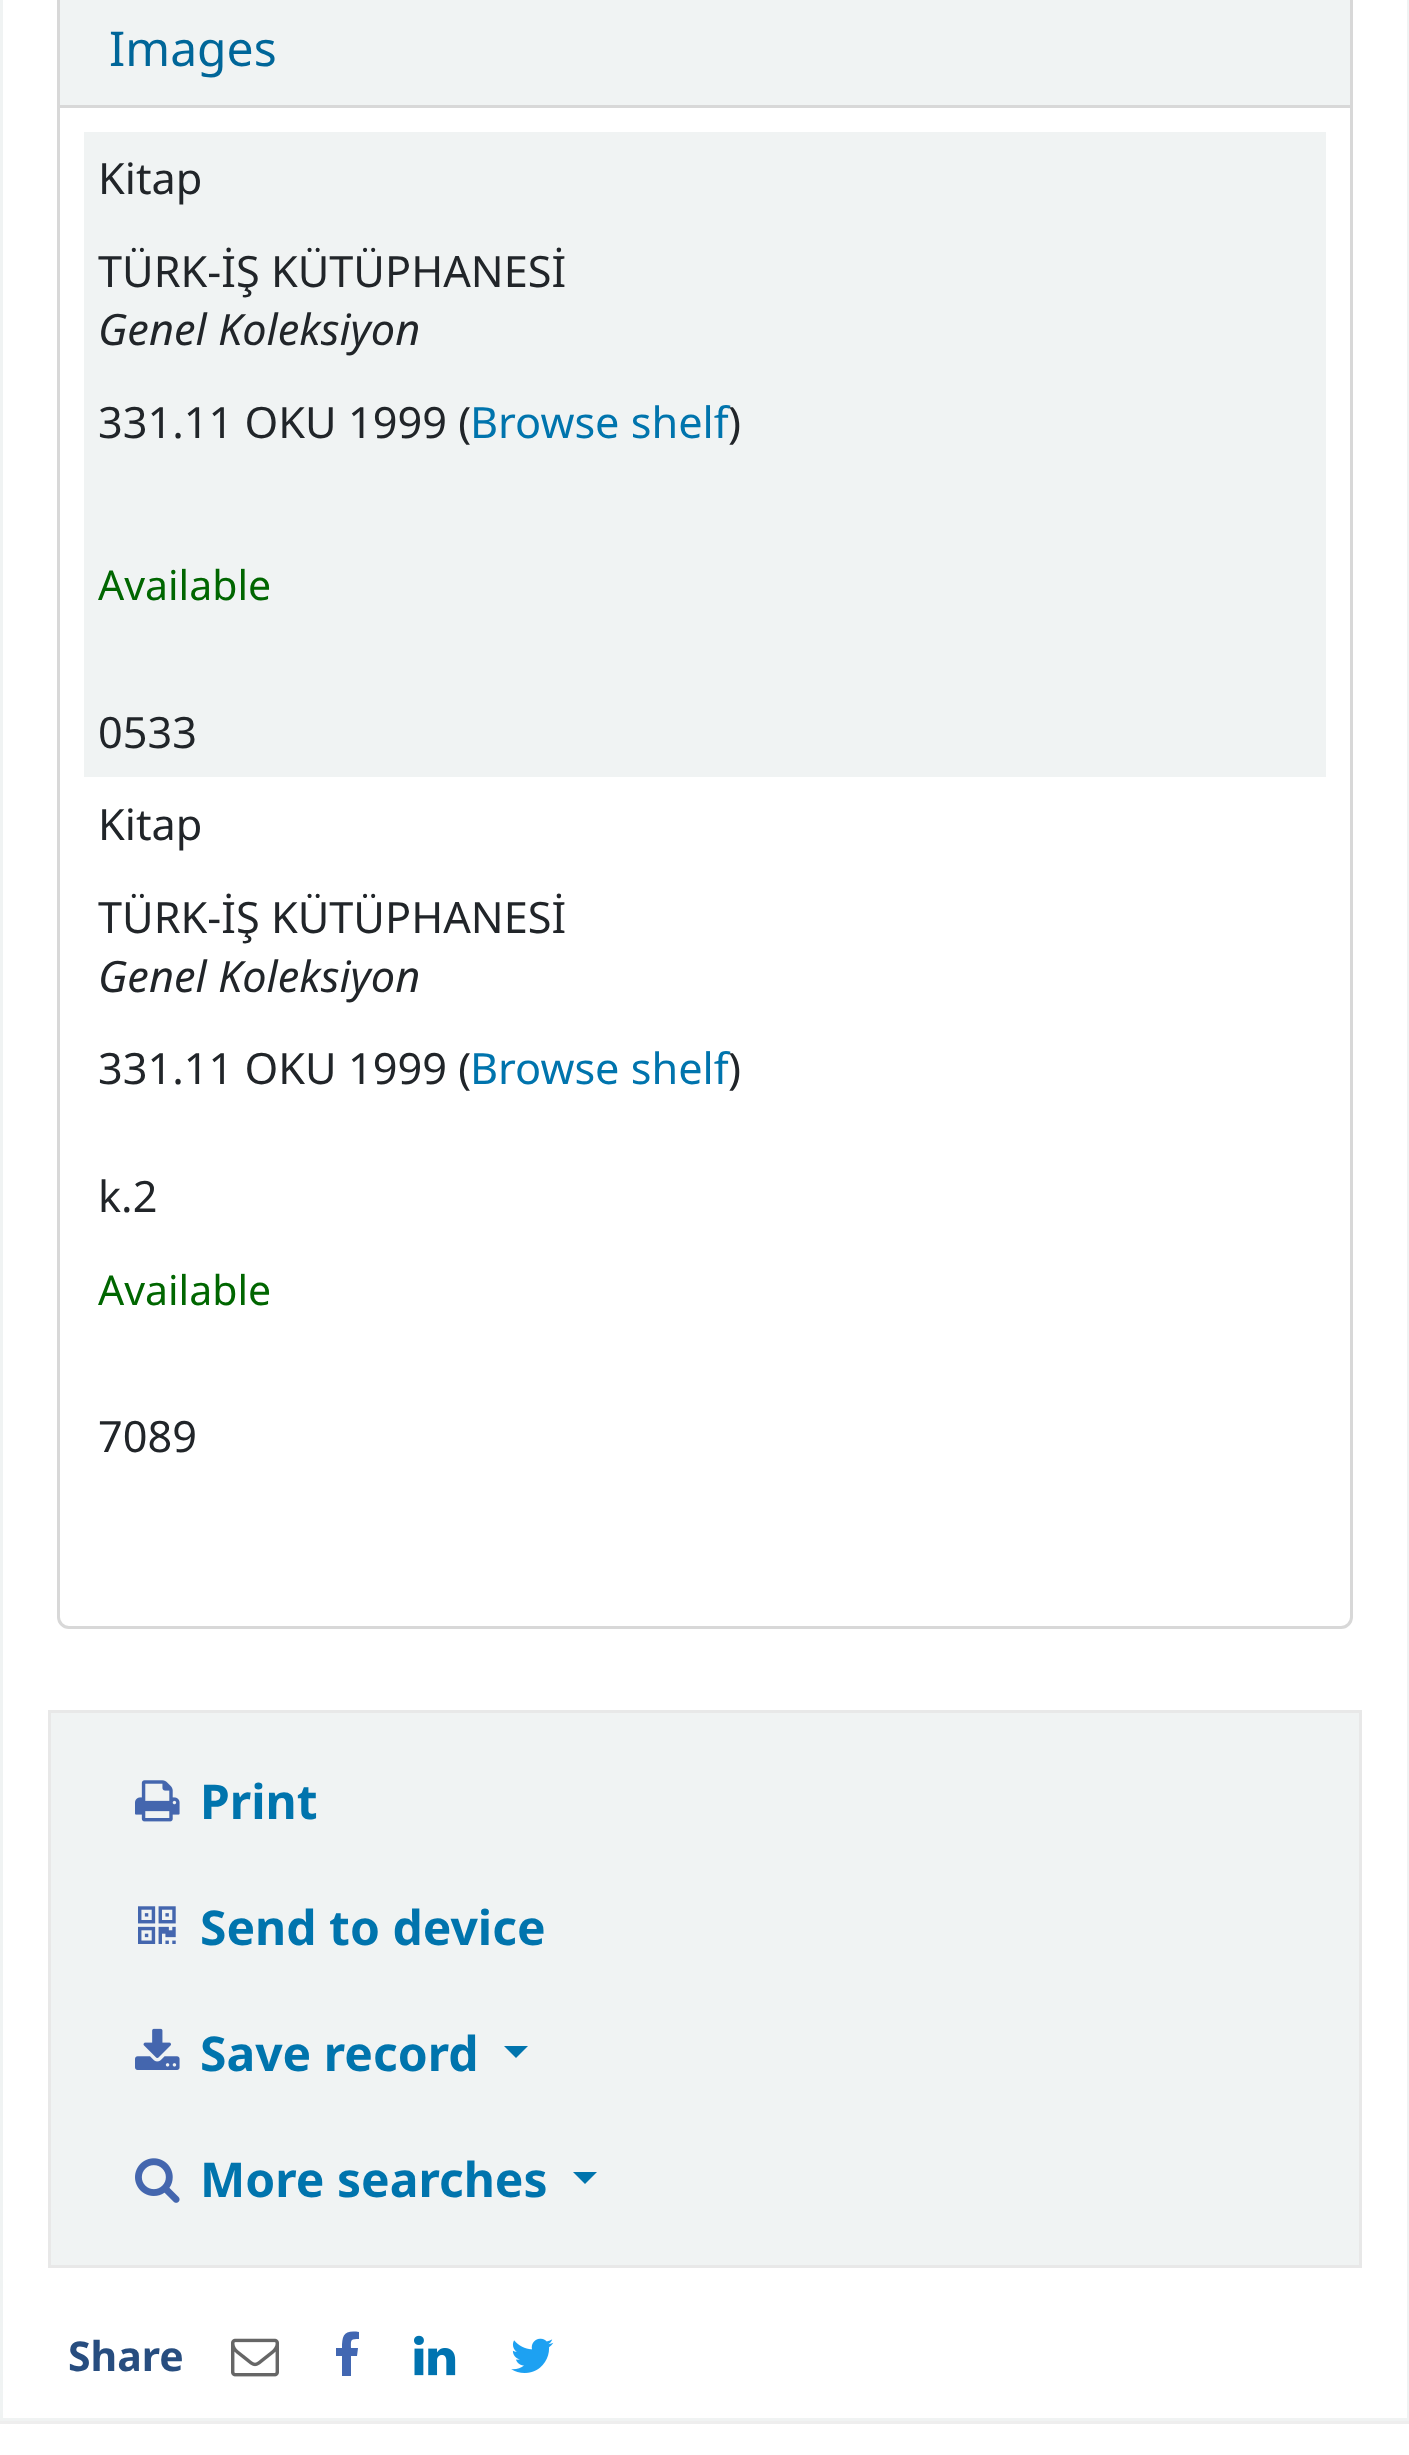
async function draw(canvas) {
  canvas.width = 1409
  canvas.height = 2455
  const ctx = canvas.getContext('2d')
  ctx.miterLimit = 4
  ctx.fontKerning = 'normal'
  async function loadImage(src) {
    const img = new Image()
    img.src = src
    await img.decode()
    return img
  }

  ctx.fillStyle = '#fff'
  ctx.fillRect(0, 0, 1409, 2455)
  ctx.strokeStyle = '#f0f3f3'
  ctx.lineWidth = 3
  ctx.strokeRect(1.5, -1.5, 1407, 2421)
  ctx.fillStyle = '#f0f3f3'
  ctx.fillRect(60, 0, 1290, 105)
  ctx.fillStyle = '#d8d8d8'
  ctx.fillRect(1350, 0, 3, 105)
  ctx.fillRect(57, 0, 3, 105)
  ctx.font = '48px Noto Sans'
  ctx.fillStyle = '#069'
  ctx.fillText('Images', 109, 66)
  ctx.beginPath()
  ctx.roundRect(58.5, 106.5, 1293, 1521, [0, 0, 10.5, 10.5])
  ctx.strokeStyle = '#d8d8d8'
  ctx.stroke()
  ctx.fillStyle = '#f0f3f3'
  ctx.fillRect(84, 132, 1242, 645)
  ctx.font = '43.25px Noto Sans'
  ctx.fillStyle = '#212529'
  ctx.fillText('Kitap', 98, 194)
  ctx.fillText('TÜRK-İŞ KÜTÜPHANESİ', 98, 287)
  ctx.font = 'italic 43.25px Noto Sans'
  ctx.fillText('Genel Koleksiyon', 98, 345)
  ctx.font = '43.25px Noto Sans'
  ctx.fillText('331.11 OKU 1999 (', 98, 438)
  ctx.fillStyle = '#0074ad'
  ctx.fillText('Browse shelf', 470, 438)
  ctx.fillStyle = '#212529'
  ctx.fillText(')', 728, 438)
  ctx.font = '41px Noto Sans'
  ctx.fillStyle = '#060'
  ctx.fillText('Available', 98, 600)
  ctx.font = '43.25px Noto Sans'
  ctx.fillStyle = '#212529'
  ctx.fillText('0533', 98, 748)
  ctx.fillText('Kitap', 98, 840)
  ctx.fillText('TÜRK-İŞ KÜTÜPHANESİ', 98, 933)
  ctx.font = 'italic 43.25px Noto Sans'
  ctx.fillText('Genel Koleksiyon', 98, 992)
  ctx.font = '43.25px Noto Sans'
  ctx.fillText('331.11 OKU 1999 (', 98, 1084)
  ctx.fillStyle = '#0074ad'
  ctx.fillText('Browse shelf', 470, 1084)
  ctx.fillStyle = '#212529'
  ctx.fillText(')', 728, 1084)
  ctx.fillText('k.2', 98, 1212)
  ctx.font = '41px Noto Sans'
  ctx.fillStyle = '#060'
  ctx.fillText('Available', 98, 1305)
  ctx.font = '43.25px Noto Sans'
  ctx.fillStyle = '#212529'
  ctx.fillText('7089', 98, 1452)
  ctx.fillStyle = '#f0f3f3'
  ctx.beginPath()
  ctx.rect(49.5, 1711.5, 1311, 555)
  ctx.fill()
  ctx.strokeStyle = '#e8e8e8'
  ctx.stroke()
  ctx.drawImage(await loadImage('image0.png'), 135, 1780, 45, 42)
  ctx.font = 'bold 48px Noto Sans'
  ctx.fillStyle = '#0074ad'
  ctx.fillText('Print', 200, 1819)
  ctx.drawImage(await loadImage('image1.png'), 138, 1906, 38, 38)
  ctx.fillText('Send to device', 200, 1945)
  ctx.drawImage(await loadImage('image2.png'), 135, 2028, 45, 42)
  ctx.fillText('Save record', 200, 2071)
  ctx.beginPath()
  ctx.moveTo(504, 2046)
  ctx.lineTo(528, 2046)
  ctx.lineTo(516, 2058)
  ctx.closePath()
  ctx.fill()
  ctx.drawImage(await loadImage('image3.png'), 135, 2158, 45, 45)
  ctx.fillText('More searches', 200, 2197)
  ctx.beginPath()
  ctx.moveTo(573, 2172)
  ctx.lineTo(597, 2172)
  ctx.lineTo(585, 2184)
  ctx.closePath()
  ctx.fill()
  ctx.font = 'bold 41px Noto Sans'
  ctx.fillStyle = '#274d7f'
  ctx.fillText('Share', 68, 2371)
  ctx.drawImage(await loadImage('image4.png'), 231, 2338, 48, 39)
  ctx.fillStyle = '#4267b2'
  ctx.beginPath()
  ctx.moveTo(359, 2332)
  ctx.lineTo(359, 2339)
  ctx.bezierCurveTo(350, 2339, 351, 2340, 351, 2348)
  ctx.lineTo(358, 2348)
  ctx.lineTo(357, 2356)
  ctx.lineTo(351, 2356)
  ctx.lineTo(351, 2376)
  ctx.lineTo(342, 2376)
  ctx.lineTo(342, 2356)
  ctx.lineTo(336, 2356)
  ctx.lineTo(336, 2348)
  ctx.lineTo(342, 2348)
  ctx.bezierCurveTo(342, 2335, 344, 2330, 359, 2332)
  ctx.closePath()
  ctx.fill()
  ctx.drawImage(await loadImage('image5.png'), 414, 2335, 42, 41)
  ctx.drawImage(await loadImage('image6.png'), 511, 2338, 43, 35)
  ctx.fillStyle = '#eee'
  ctx.fillRect(0, 2421, 1409, 3)
}

draw(document.querySelector('canvas'))
